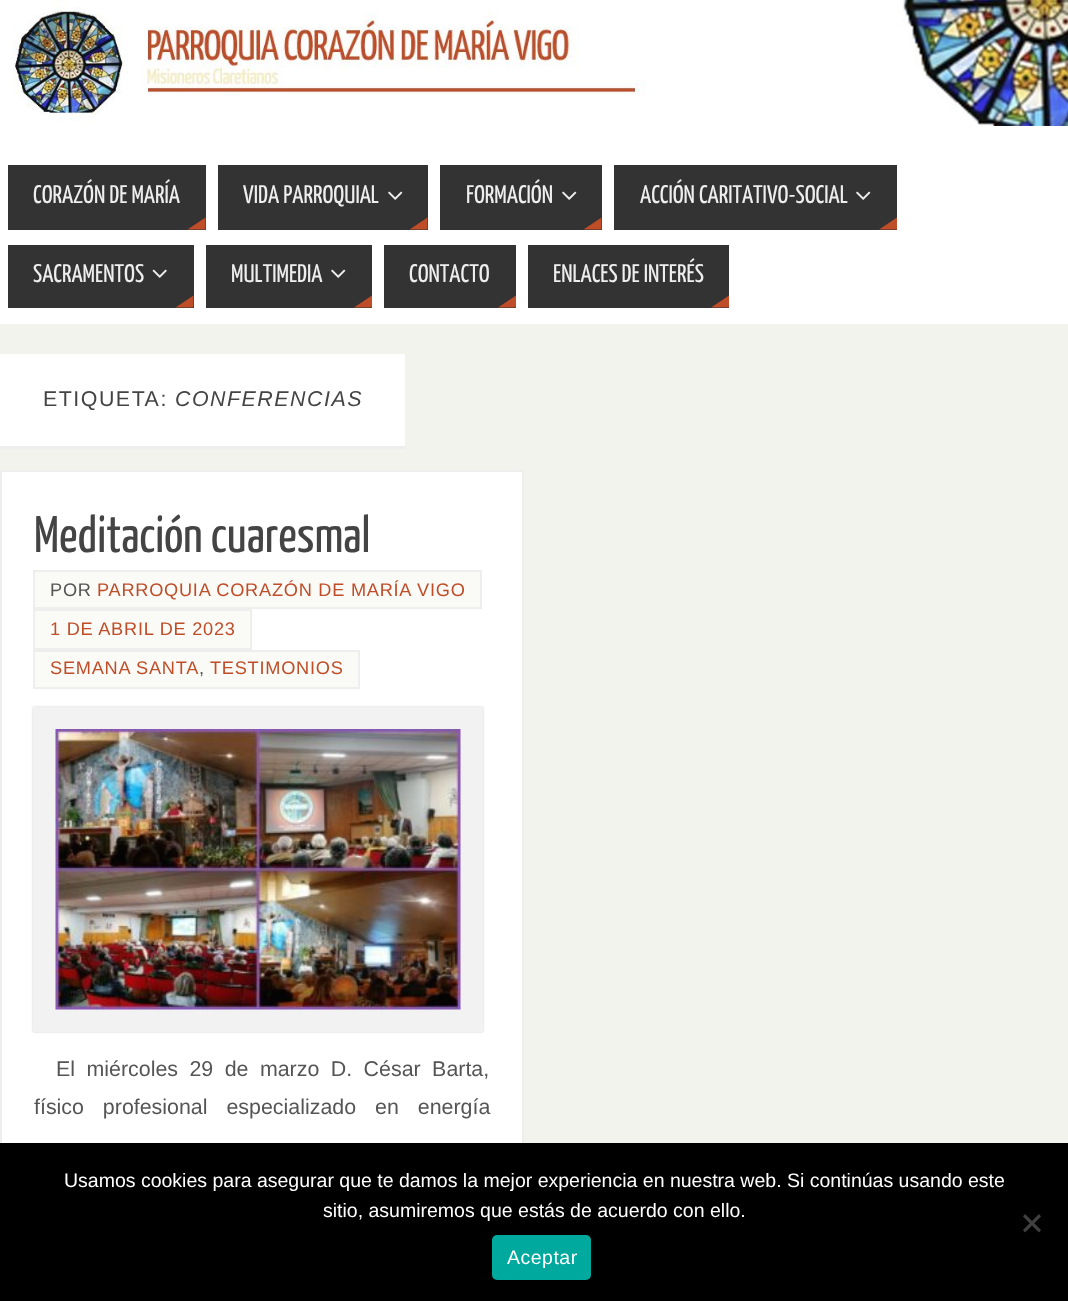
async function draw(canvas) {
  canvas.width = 1068
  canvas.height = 1301
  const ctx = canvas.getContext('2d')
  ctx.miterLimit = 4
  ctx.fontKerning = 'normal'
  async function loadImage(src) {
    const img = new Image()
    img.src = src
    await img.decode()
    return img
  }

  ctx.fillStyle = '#f3f3ee'
  ctx.fillRect(0, 0, 1068, 1301)
  ctx.fillStyle = '#fff'
  ctx.fillRect(0, 0, 1068, 324)
  ctx.drawImage(await loadImage('image0.png'), 13, 0, 1055, 126)
  ctx.fillStyle = '#333'
  ctx.fillRect(8, 165, 198, 65)
  ctx.font = '25.5px Yanone Kaffeesatz'
  ctx.fillStyle = '#eee'
  ctx.fillText('CORAZÓN DE MARÍA', 33, 203)
  ctx.fillStyle = '#bf4d28'
  ctx.beginPath()
  ctx.moveTo(205.5, 229.5)
  ctx.lineTo(187.5, 229.5)
  ctx.lineTo(205.5, 217.5)
  ctx.closePath()
  ctx.fill()
  ctx.fillStyle = '#333'
  ctx.fillRect(218, 165, 210, 65)
  ctx.fillStyle = '#eee'
  ctx.fillText('VIDA PARROQUIAL', 243, 203)
  ctx.drawImage(await loadImage('image1.png'), 388, 191, 15, 9)
  ctx.fillStyle = '#bf4d28'
  ctx.beginPath()
  ctx.moveTo(427.5, 229.5)
  ctx.lineTo(409.5, 229.5)
  ctx.lineTo(427.5, 217.5)
  ctx.closePath()
  ctx.fill()
  ctx.fillStyle = '#333'
  ctx.fillRect(440, 165, 162, 65)
  ctx.fillStyle = '#eee'
  ctx.fillText('FORMACIÓN', 466, 203)
  ctx.drawImage(await loadImage('image1.png'), 562, 191, 15, 9)
  ctx.fillStyle = '#bf4d28'
  ctx.beginPath()
  ctx.moveTo(601.5, 229.5)
  ctx.lineTo(583.5, 229.5)
  ctx.lineTo(601.5, 217.5)
  ctx.closePath()
  ctx.fill()
  ctx.fillStyle = '#333'
  ctx.fillRect(614, 165, 283, 65)
  ctx.fillStyle = '#eee'
  ctx.fillText('ACCIÓN CARITATIVO-SOCIAL', 640, 203)
  ctx.drawImage(await loadImage('image1.png'), 856, 191, 15, 9)
  ctx.fillStyle = '#bf4d28'
  ctx.beginPath()
  ctx.moveTo(897, 229.5)
  ctx.lineTo(879, 229.5)
  ctx.lineTo(897, 217.5)
  ctx.closePath()
  ctx.fill()
  ctx.fillStyle = '#333'
  ctx.fillRect(8, 245, 186, 63)
  ctx.fillStyle = '#eee'
  ctx.fillText('SACRAMENTOS', 33, 282)
  ctx.drawImage(await loadImage('image2.png'), 152, 269, 15, 9)
  ctx.fillStyle = '#bf4d28'
  ctx.beginPath()
  ctx.moveTo(193.5, 307.5)
  ctx.lineTo(175.5, 307.5)
  ctx.lineTo(193.5, 295.5)
  ctx.closePath()
  ctx.fill()
  ctx.fillStyle = '#333'
  ctx.fillRect(206, 245, 166, 63)
  ctx.fillStyle = '#eee'
  ctx.fillText('MULTIMEDIA', 231, 282)
  ctx.drawImage(await loadImage('image1.png'), 331, 269, 15, 9)
  ctx.fillStyle = '#bf4d28'
  ctx.beginPath()
  ctx.moveTo(372, 307.5)
  ctx.lineTo(354, 307.5)
  ctx.lineTo(372, 295.5)
  ctx.closePath()
  ctx.fill()
  ctx.fillStyle = '#333'
  ctx.fillRect(384, 245, 132, 63)
  ctx.fillStyle = '#eee'
  ctx.fillText('CONTACTO', 409, 282)
  ctx.fillStyle = '#bf4d28'
  ctx.beginPath()
  ctx.moveTo(516, 307.5)
  ctx.lineTo(498, 307.5)
  ctx.lineTo(516, 295.5)
  ctx.closePath()
  ctx.fill()
  ctx.fillStyle = '#333'
  ctx.fillRect(528, 245, 201, 63)
  ctx.fillStyle = '#eee'
  ctx.fillText('ENLACES DE INTERÉS', 553, 282)
  ctx.fillStyle = '#bf4d28'
  ctx.beginPath()
  ctx.moveTo(729, 307.5)
  ctx.lineTo(711, 307.5)
  ctx.lineTo(729, 295.5)
  ctx.closePath()
  ctx.fill()
  ctx.fillStyle = '#fff'
  ctx.fillRect(0, 354, 405, 92)
  ctx.fillStyle = '#eee'
  ctx.fillRect(0, 446, 405, 3)
  ctx.letterSpacing = '1.5px'
  ctx.font = '21.4px Liberation Sans'
  ctx.fillStyle = '#444'
  ctx.fillText('ETIQUETA:', 43, 406)
  ctx.font = 'italic 21.4px Liberation Sans'
  ctx.fillText('CONFERENCIAS', 175, 406)
  ctx.fillStyle = '#fff'
  ctx.fillRect(2, 472, 520, 671)
  ctx.strokeStyle = '#eee'
  ctx.lineWidth = 2
  ctx.strokeRect(1, 471, 522, 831)
  ctx.letterSpacing = '0px'
  ctx.font = '51.25px Yanone Kaffeesatz'
  ctx.fillStyle = '#444'
  ctx.fillText('Meditación cuaresmal', 34, 552)
  ctx.fillStyle = '#fafaf7'
  ctx.beginPath()
  ctx.rect(34, 571, 447, 37)
  ctx.fill()
  ctx.stroke()
  ctx.letterSpacing = '0.75px'
  ctx.font = '18.2px Liberation Sans'
  ctx.fillStyle = '#555'
  ctx.fillText('POR', 50, 596)
  ctx.fillStyle = '#bf4d28'
  ctx.fillText('PARROQUIA CORAZÓN DE MARÍA VIGO', 97, 596)
  ctx.fillStyle = '#fafaf7'
  ctx.beginPath()
  ctx.rect(34, 610, 217, 39)
  ctx.fill()
  ctx.stroke()
  ctx.fillStyle = '#bf4d28'
  ctx.fillText('1 DE ABRIL DE 2023', 50, 635)
  ctx.fillStyle = '#fafaf7'
  ctx.beginPath()
  ctx.rect(34, 651, 325, 37)
  ctx.fill()
  ctx.stroke()
  ctx.fillStyle = '#bf4d28'
  ctx.fillText('SEMANA SANTA', 50, 674)
  ctx.fillStyle = '#555'
  ctx.fillText(',', 199, 674)
  ctx.fillStyle = '#bf4d28'
  ctx.fillText('TESTIMONIOS', 210, 674)
  ctx.save()
  ctx.beginPath()
  ctx.moveTo(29, 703)
  ctx.lineTo(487, 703)
  ctx.lineTo(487, 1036)
  ctx.lineTo(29, 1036)
  ctx.closePath()
  ctx.moveTo(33, 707)
  ctx.lineTo(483, 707)
  ctx.lineTo(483, 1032)
  ctx.lineTo(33, 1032)
  ctx.closePath()
  ctx.clip('evenodd')
  ctx.fillStyle = '#cdcdcd'
  ctx.filter = 'blur(1px)'
  ctx.beginPath()
  ctx.rect(33, 707, 450, 325)
  ctx.fill()
  ctx.filter = 'none'
  ctx.restore()
  ctx.strokeStyle = '#f2f2f2'
  ctx.lineWidth = 23
  ctx.strokeRect(44.5, 718.5, 427, 302)
  ctx.drawImage(await loadImage('image3.png'), 55, 729, 406, 281)
  ctx.letterSpacing = '0px'
  ctx.wordSpacing = '5.5px'
  ctx.font = '21.4px Liberation Sans'
  ctx.fillStyle = '#555'
  ctx.fillText('El miércoles 29 de marzo D. César Barta,', 56, 1076)
  ctx.wordSpacing = '13px'
  ctx.fillText('físico profesional especializado en energía', 34, 1114)
  ctx.fillStyle = '#000'
  ctx.fillRect(0, 1143, 1068, 158)
  ctx.wordSpacing = '0px'
  ctx.font = '19.5px Liberation Sans'
  ctx.fillStyle = '#fff'
  ctx.fillText('Usamos cookies para asegurar que te damos la mejor experiencia en nuestra web. Si continúas usando este', 64, 1187)
  ctx.fillText('sitio, asumiremos que estás de acuerdo con ello.', 323, 1217)
  ctx.fillStyle = '#404040'
  ctx.beginPath()
  ctx.moveTo(1039, 1214)
  ctx.lineTo(1041, 1216.5)
  ctx.lineTo(1025, 1232.5)
  ctx.lineTo(1023, 1230)
  ctx.closePath()
  ctx.fill()
  ctx.beginPath()
  ctx.moveTo(1023, 1216.5)
  ctx.lineTo(1025, 1214)
  ctx.lineTo(1041, 1230)
  ctx.lineTo(1039, 1232.5)
  ctx.closePath()
  ctx.fill()
  ctx.fillStyle = '#00a99d'
  ctx.beginPath()
  ctx.roundRect(492, 1235, 99, 45, 5)
  ctx.fill()
  ctx.letterSpacing = '0.5px'
  ctx.fillStyle = '#fff'
  ctx.fillText('Aceptar', 507, 1264)
}

draw(document.querySelector('canvas'))
